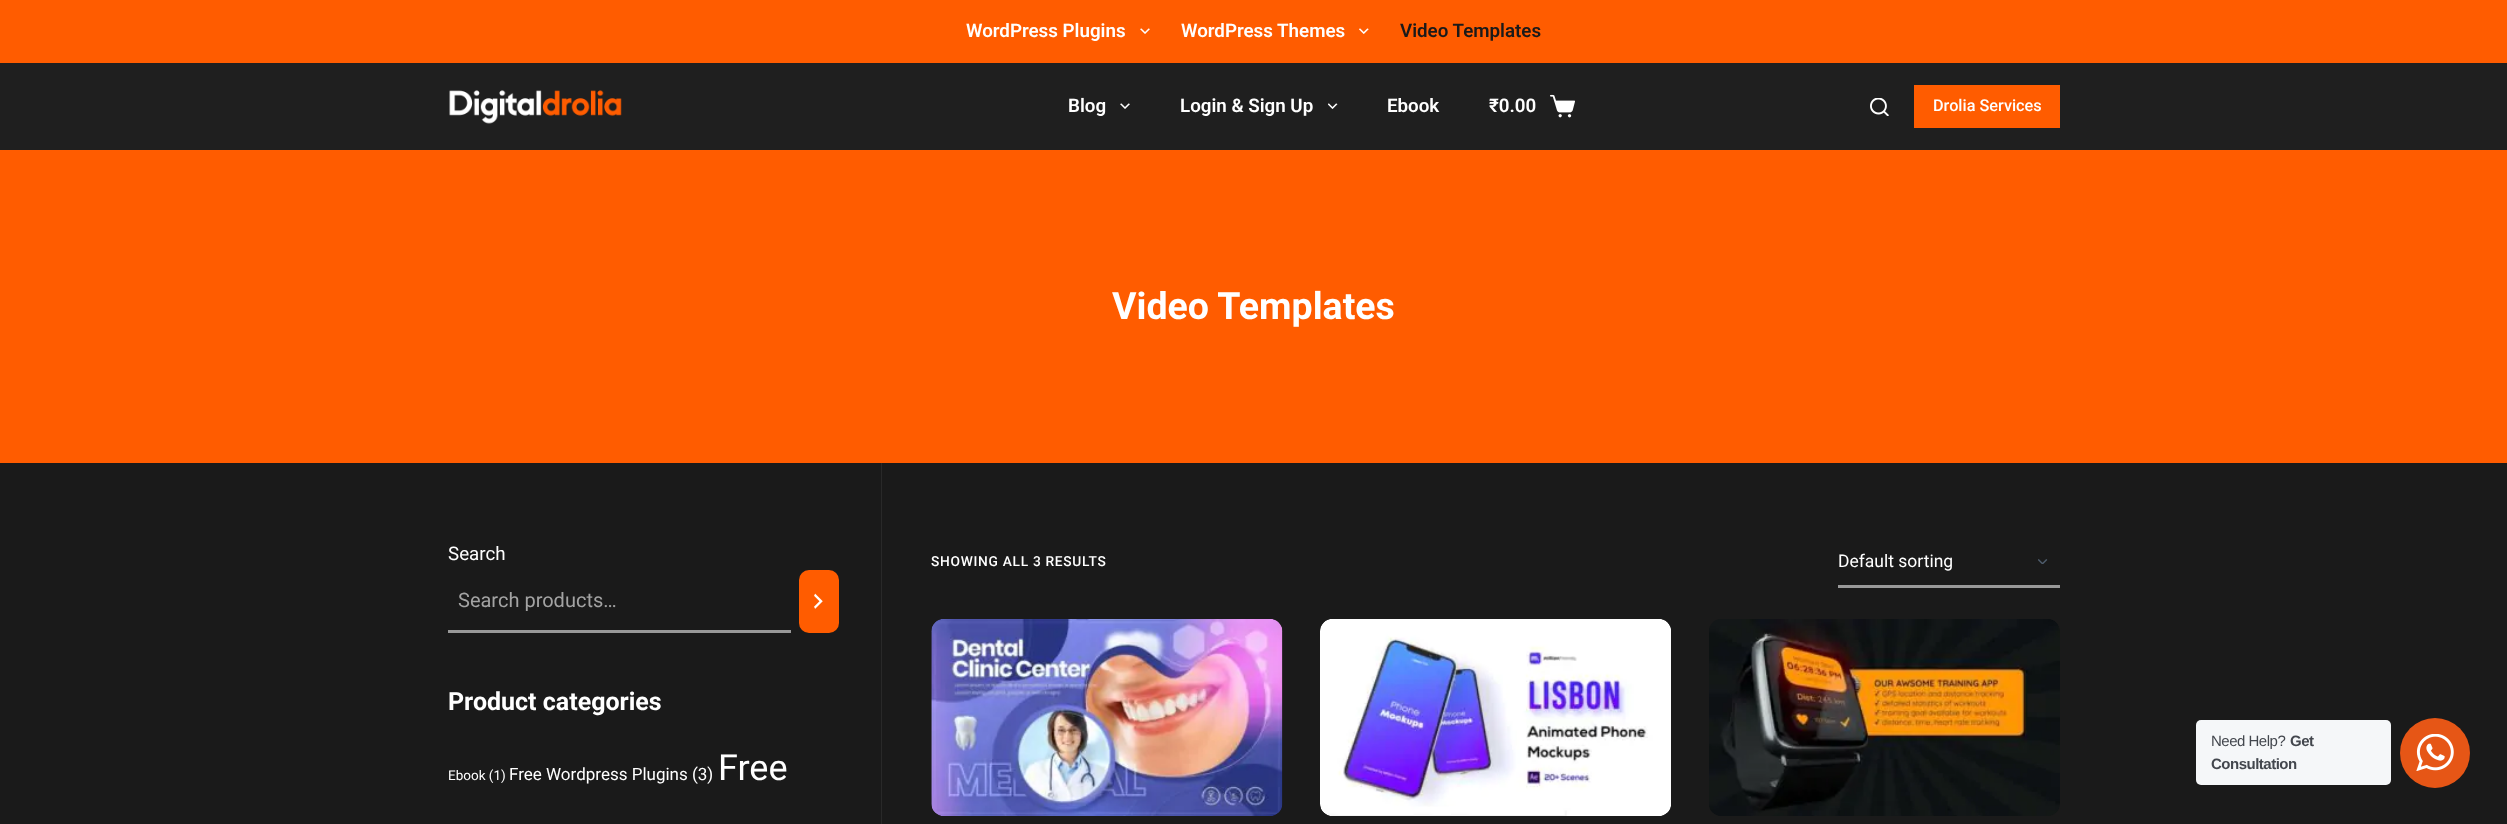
async function draw(canvas) {
  canvas.width = 2507
  canvas.height = 824
  const ctx = canvas.getContext('2d')
  ctx.miterLimit = 4
  ctx.fontKerning = 'normal'
  async function loadImage(src) {
    const img = new Image()
    img.src = src
    await img.decode()
    return img
  }

  ctx.fillStyle = '#1a1a1a'
  ctx.fillRect(0, 0, 2507, 824)
  ctx.fillStyle = '#ff5c00'
  ctx.fillRect(0, 0, 2507, 63)
  ctx.font = '600 18.75px Roboto'
  ctx.fillStyle = '#fff'
  ctx.fillText('WordPress Plugins', 966, 37)
  ctx.drawImage(await loadImage('image0.png'), 1140, 28, 10, 6)
  ctx.fillText('WordPress Themes', 1181, 37)
  ctx.drawImage(await loadImage('image1.png'), 1359, 28, 10, 6)
  ctx.fillStyle = '#1a1a1a'
  ctx.fillText('Video Templates', 1400, 37)
  ctx.fillStyle = '#1f1f1f'
  ctx.fillRect(0, 63, 2507, 87)
  ctx.drawImage(await loadImage('image2.png'), 449, 90, 173, 34)
  ctx.fillStyle = '#fff'
  ctx.fillText('Blog', 1068, 112)
  ctx.drawImage(await loadImage('image3.png'), 1120, 103, 10, 6)
  ctx.fillText('Login & Sign Up', 1180, 112)
  ctx.drawImage(await loadImage('image4.png'), 1328, 103, 10, 6)
  ctx.fillText('Ebook', 1387, 112)
  ctx.fillText('₹0.00', 1489, 112)
  ctx.drawImage(await loadImage('image5.png'), 1550, 94, 25, 24)
  ctx.drawImage(await loadImage('image6.png'), 1870, 98, 19, 18)
  ctx.fillStyle = '#ff5c00'
  ctx.fillRect(1914, 85, 146, 43)
  ctx.font = '500 16.25px Roboto'
  ctx.fillStyle = '#fff'
  ctx.fillText('Drolia Services', 1933, 111)
  ctx.fillStyle = '#ff5c00'
  ctx.fillRect(0, 150, 2507, 313)
  ctx.font = 'bold 37.5px Roboto'
  ctx.fillStyle = '#fff'
  ctx.fillText('Video Templates', 1112, 319)
  ctx.font = '18.75px Roboto'
  ctx.fillText('Search', 448, 560)
  ctx.fillStyle = '#999'
  ctx.fillRect(448, 630, 343, 3)
  ctx.font = '20px Roboto'
  ctx.fillStyle = '#a3a3a3'
  ctx.fillText('Search products…', 458, 607)
  ctx.fillStyle = '#ff5c00'
  ctx.beginPath()
  ctx.roundRect(799, 570, 40, 63, 10)
  ctx.fill()
  ctx.drawImage(await loadImage('image7.png'), 814, 593, 9, 16)
  ctx.font = 'bold 25px Roboto'
  ctx.fillStyle = '#fff'
  ctx.fillText('Product categories', 448, 710)
  ctx.font = '13.5px Roboto'
  ctx.fillText('Ebook (1)', 448, 780)
  ctx.font = '17px Roboto'
  ctx.fillText('Free Wordpress Plugins (3)', 509, 780)
  ctx.font = '36px Roboto'
  ctx.fillText('Free', 718, 780)
  ctx.fillStyle = '#292929'
  ctx.fillRect(881, 463, 1, 361)
  ctx.letterSpacing = '0.7px'
  ctx.font = '500 13.75px Roboto'
  ctx.fillStyle = '#fff'
  ctx.fillText('SHOWING ALL 3 RESULTS', 931, 566)
  ctx.drawImage(await loadImage('image8.png'), 2038, 559, 10, 5)
  ctx.fillStyle = '#999'
  ctx.fillRect(1838, 585, 222, 3)
  ctx.letterSpacing = '0px'
  ctx.font = '17.5px Roboto'
  ctx.fillStyle = '#fff'
  ctx.fillText('Default sorting', 1838, 567)
  ctx.drawImage(await loadImage('image9.png'), 931, 619, 352, 197)
  ctx.drawImage(await loadImage('image10.png'), 1320, 619, 351, 197)
  ctx.drawImage(await loadImage('image11.png'), 1709, 619, 351, 197)
  ctx.fillStyle = '#f5f7f9'
  ctx.beginPath()
  ctx.roundRect(2196, 720, 195, 65, 5)
  ctx.fill()
  ctx.letterSpacing = '-0.5px'
  ctx.font = '15px Liberation Sans'
  ctx.fillStyle = '#43474e'
  ctx.fillText('Need Help?', 2211, 746)
  ctx.font = 'bold 15px Liberation Sans'
  ctx.fillText('Get', 2290, 746)
  ctx.fillText('Consultation', 2211, 769)
  ctx.fillStyle = '#e65616'
  ctx.beginPath()
  ctx.arc(2435, 753, 35, 0, 2 * Math.PI)
  ctx.fill()
  ctx.drawImage(await loadImage('image12.png'), 2416, 734, 38, 37)
}

draw(document.querySelector('canvas'))
